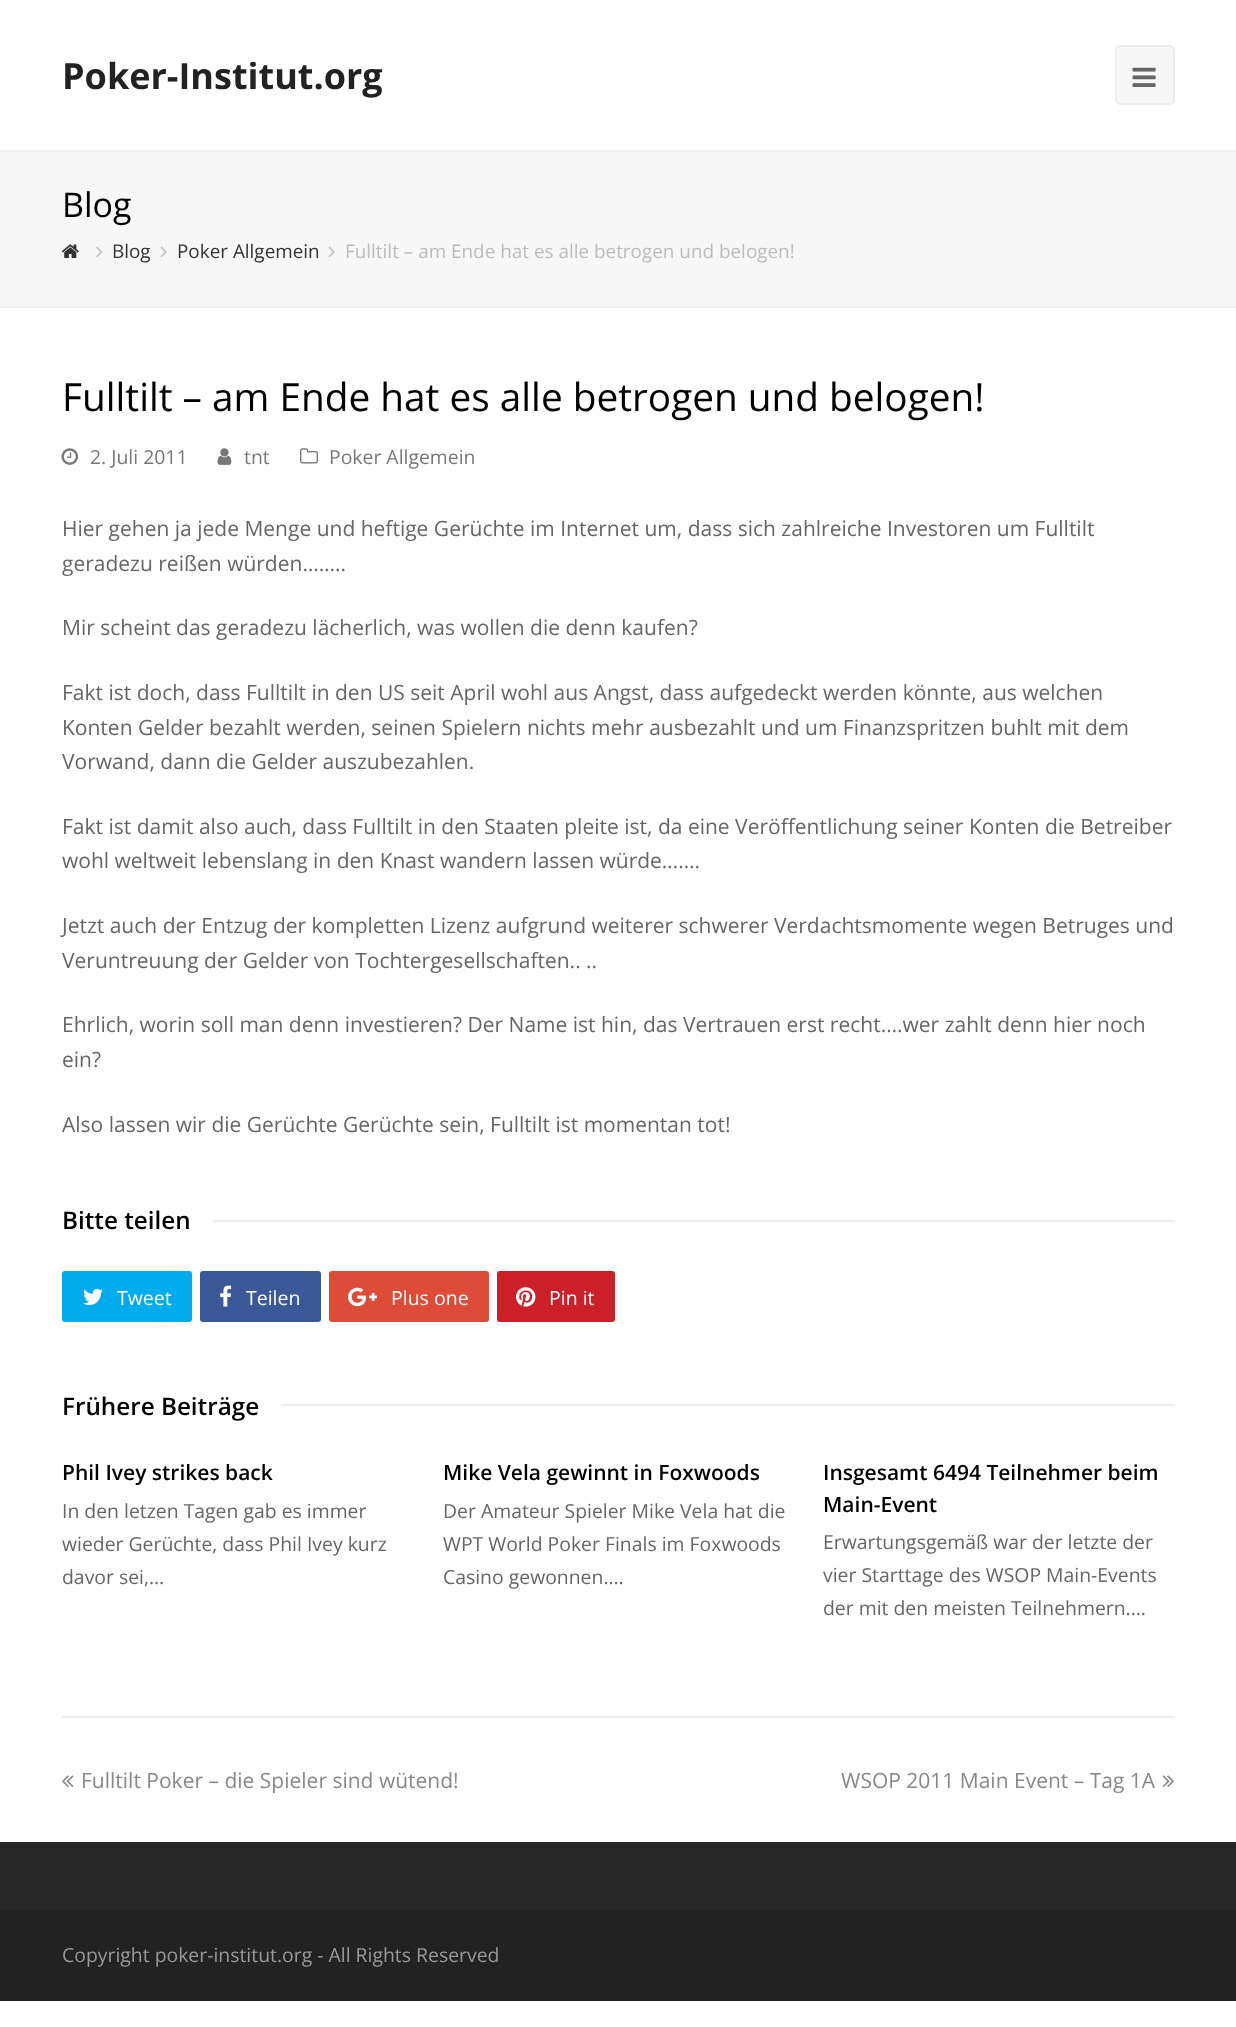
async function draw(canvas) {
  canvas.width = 1236
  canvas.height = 2027
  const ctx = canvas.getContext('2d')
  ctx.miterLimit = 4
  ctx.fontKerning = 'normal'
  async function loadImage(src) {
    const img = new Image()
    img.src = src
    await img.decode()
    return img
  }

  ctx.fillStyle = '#fff'
  ctx.fillRect(0, 0, 1236, 2027)
  ctx.font = 'bold 36px Open Sans'
  ctx.fillStyle = '#222'
  ctx.fillText('Poker-Institut.org', 62, 89)
  ctx.fillStyle = '#f7f7f7'
  ctx.beginPath()
  ctx.roundRect(1116, 46, 58, 58, 4)
  ctx.fill()
  ctx.strokeStyle = '#eee'
  ctx.lineWidth = 2
  ctx.stroke()
  ctx.drawImage(await loadImage('image0.png'), 1132, 67, 24, 20)
  ctx.fillRect(0, 152, 1236, 154)
  ctx.fillStyle = '#eee'
  ctx.fillRect(0, 150, 1236, 2)
  ctx.fillRect(0, 306, 1236, 2)
  ctx.font = '34px Open Sans'
  ctx.fillStyle = '#000'
  ctx.fillText('Blog', 62, 217)
  ctx.drawImage(await loadImage('image1.png'), 61, 244, 18, 14)
  ctx.drawImage(await loadImage('image2.png'), 96, 246, 7, 11)
  ctx.font = '18.9px Open Sans'
  ctx.fillStyle = '#333'
  ctx.fillText('Blog', 112, 258)
  ctx.drawImage(await loadImage('image3.png'), 160, 246, 7, 12)
  ctx.fillText('Poker Allgemein', 177, 258)
  ctx.drawImage(await loadImage('image3.png'), 328, 246, 7, 12)
  ctx.fillStyle = '#bcbcbc'
  ctx.fillText('Fulltilt – am Ende hat es alle betrogen und belogen!', 345, 258)
  ctx.font = '38.75px Open Sans'
  ctx.fillStyle = '#000'
  ctx.fillText('Fulltilt – am Ende hat es alle betrogen und belogen!', 62, 411)
  ctx.drawImage(await loadImage('image4.png'), 61, 448, 18, 17)
  ctx.font = '19.4px Open Sans'
  ctx.fillStyle = '#777'
  ctx.fillText('2. Juli 2011', 90, 464)
  ctx.drawImage(await loadImage('image5.png'), 217, 448, 15, 17)
  ctx.fillText('tnt', 244, 464)
  ctx.drawImage(await loadImage('image6.png'), 300, 448, 18, 16)
  ctx.fillText('Poker Allgemein', 329, 464)
  ctx.font = '21px Open Sans'
  ctx.fillStyle = '#666'
  ctx.fillText('Hier gehen ja jede Menge und heftige Gerüchte im Internet um, dass sich zahlreiche Investoren um Fulltilt', 62, 536)
  ctx.fillText('geradezu reißen würden……..', 62, 571)
  ctx.fillText('Mir scheint das geradezu lächerlich, was wollen die denn kaufen?', 62, 635)
  ctx.fillText('Fakt ist doch, dass Fulltilt in den US seit April wohl aus Angst, dass aufgedeckt werden könnte, aus welchen', 62, 700)
  ctx.fillText('Konten Gelder bezahlt werden, seinen Spielern nichts mehr ausbezahlt und um Finanzspritzen buhlt mit dem', 62, 735)
  ctx.fillText('Vorwand, dann die Gelder auszubezahlen.', 62, 769)
  ctx.fillText('Fakt ist damit also auch, dass Fulltilt in den Staaten pleite ist, da eine Veröffentlichung seiner Konten die Betreiber', 62, 834)
  ctx.fillText('wohl weltweit lebenslang in den Knast wandern lassen würde…….', 62, 868)
  ctx.fillText('Jetzt auch der Entzug der kompletten Lizenz aufgrund weiterer schwerer Verdachtsmomente wegen Betruges und', 62, 933)
  ctx.fillText('Veruntreuung der Gelder von Tochtergesellschaften.. ..', 62, 968)
  ctx.fillText('Ehrlich, worin soll man denn investieren? Der Name ist hin, das Vertrauen erst recht….wer zahlt denn hier noch', 62, 1032)
  ctx.fillText('ein?', 62, 1067)
  ctx.fillText('Also lassen wir die Gerüchte Gerüchte sein, Fulltilt ist momentan tot!', 62, 1132)
  ctx.font = '600 24.25px Open Sans'
  ctx.fillStyle = '#000'
  ctx.fillText('Bitte teilen', 62, 1229)
  ctx.fillStyle = '#eee'
  ctx.fillRect(213, 1220, 962, 2)
  ctx.fillStyle = '#00aced'
  ctx.beginPath()
  ctx.roundRect(62, 1271, 130, 51, 3)
  ctx.fill()
  ctx.drawImage(await loadImage('image7.png'), 83, 1288, 20, 17)
  ctx.font = '19.5px Open Sans'
  ctx.fillStyle = '#fff'
  ctx.fillText('Tweet', 117, 1305)
  ctx.fillStyle = '#3b5998'
  ctx.beginPath()
  ctx.roundRect(200, 1271, 121, 51, 3)
  ctx.fill()
  ctx.drawImage(await loadImage('image8.png'), 220, 1285, 12, 22)
  ctx.fillStyle = '#fff'
  ctx.fillText('Teilen', 246, 1305)
  ctx.fillStyle = '#dd4b39'
  ctx.beginPath()
  ctx.roundRect(329, 1271, 160, 51, 3)
  ctx.fill()
  ctx.drawImage(await loadImage('image9.png'), 348, 1287, 30, 20)
  ctx.fillStyle = '#fff'
  ctx.fillText('Plus one', 391, 1305)
  ctx.fillStyle = '#cb2027'
  ctx.beginPath()
  ctx.roundRect(497, 1271, 118, 51, 3)
  ctx.fill()
  ctx.drawImage(await loadImage('image10.png'), 516, 1287, 20, 20)
  ctx.fillStyle = '#fff'
  ctx.fillText('Pin it', 549, 1305)
  ctx.font = '600 24.25px Open Sans'
  ctx.fillStyle = '#000'
  ctx.fillText('Frühere Beiträge', 62, 1415)
  ctx.fillStyle = '#eee'
  ctx.fillRect(281, 1404, 894, 2)
  ctx.font = '600 21px Open Sans'
  ctx.fillStyle = '#000'
  ctx.fillText('Phil Ivey strikes back', 62, 1480)
  ctx.font = '19.4px Open Sans'
  ctx.fillStyle = '#666'
  ctx.fillText('In den letzen Tagen gab es immer', 62, 1518)
  ctx.fillText('wieder Gerüchte, dass Phil Ivey kurz', 62, 1551)
  ctx.fillText('davor sei,…', 62, 1584)
  ctx.font = '600 21px Open Sans'
  ctx.fillStyle = '#000'
  ctx.fillText('Mike Vela gewinnt in Foxwoods', 443, 1480)
  ctx.font = '19.4px Open Sans'
  ctx.fillStyle = '#666'
  ctx.fillText('Der Amateur Spieler Mike Vela hat die', 443, 1518)
  ctx.fillText('WPT World Poker Finals im Foxwoods', 443, 1551)
  ctx.fillText('Casino gewonnen.…', 443, 1584)
  ctx.font = '600 21px Open Sans'
  ctx.fillStyle = '#000'
  ctx.fillText('Insgesamt 6494 Teilnehmer beim', 823, 1480)
  ctx.fillText('Main-Event', 823, 1512)
  ctx.font = '19.4px Open Sans'
  ctx.fillStyle = '#666'
  ctx.fillText('Erwartungsgemäß war der letzte der', 823, 1549)
  ctx.fillText('vier Starttage des WSOP Main-Events', 823, 1582)
  ctx.fillText('der mit den meisten Teilnehmern.…', 823, 1615)
  ctx.fillStyle = '#eee'
  ctx.fillRect(62, 1716, 1113, 2)
  ctx.drawImage(await loadImage('image11.png'), 62, 1775, 12, 12)
  ctx.font = '21px Open Sans'
  ctx.fillStyle = '#888'
  ctx.fillText('Fulltilt Poker – die Spieler sind wütend!', 81, 1788)
  ctx.fillText('WSOP 2011 Main Event – Tag 1A', 841, 1788)
  ctx.drawImage(await loadImage('image12.png'), 1162, 1775, 12, 12)
  ctx.fillStyle = '#262626'
  ctx.fillRect(0, 1842, 1236, 68)
  ctx.fillStyle = '#222'
  ctx.fillRect(0, 1910, 1236, 91)
  ctx.font = '19.4px Open Sans'
  ctx.fillStyle = '#999'
  ctx.fillText('Copyright poker-institut.org - All Rights Reserved', 62, 1962)
}

draw(document.querySelector('canvas'))
